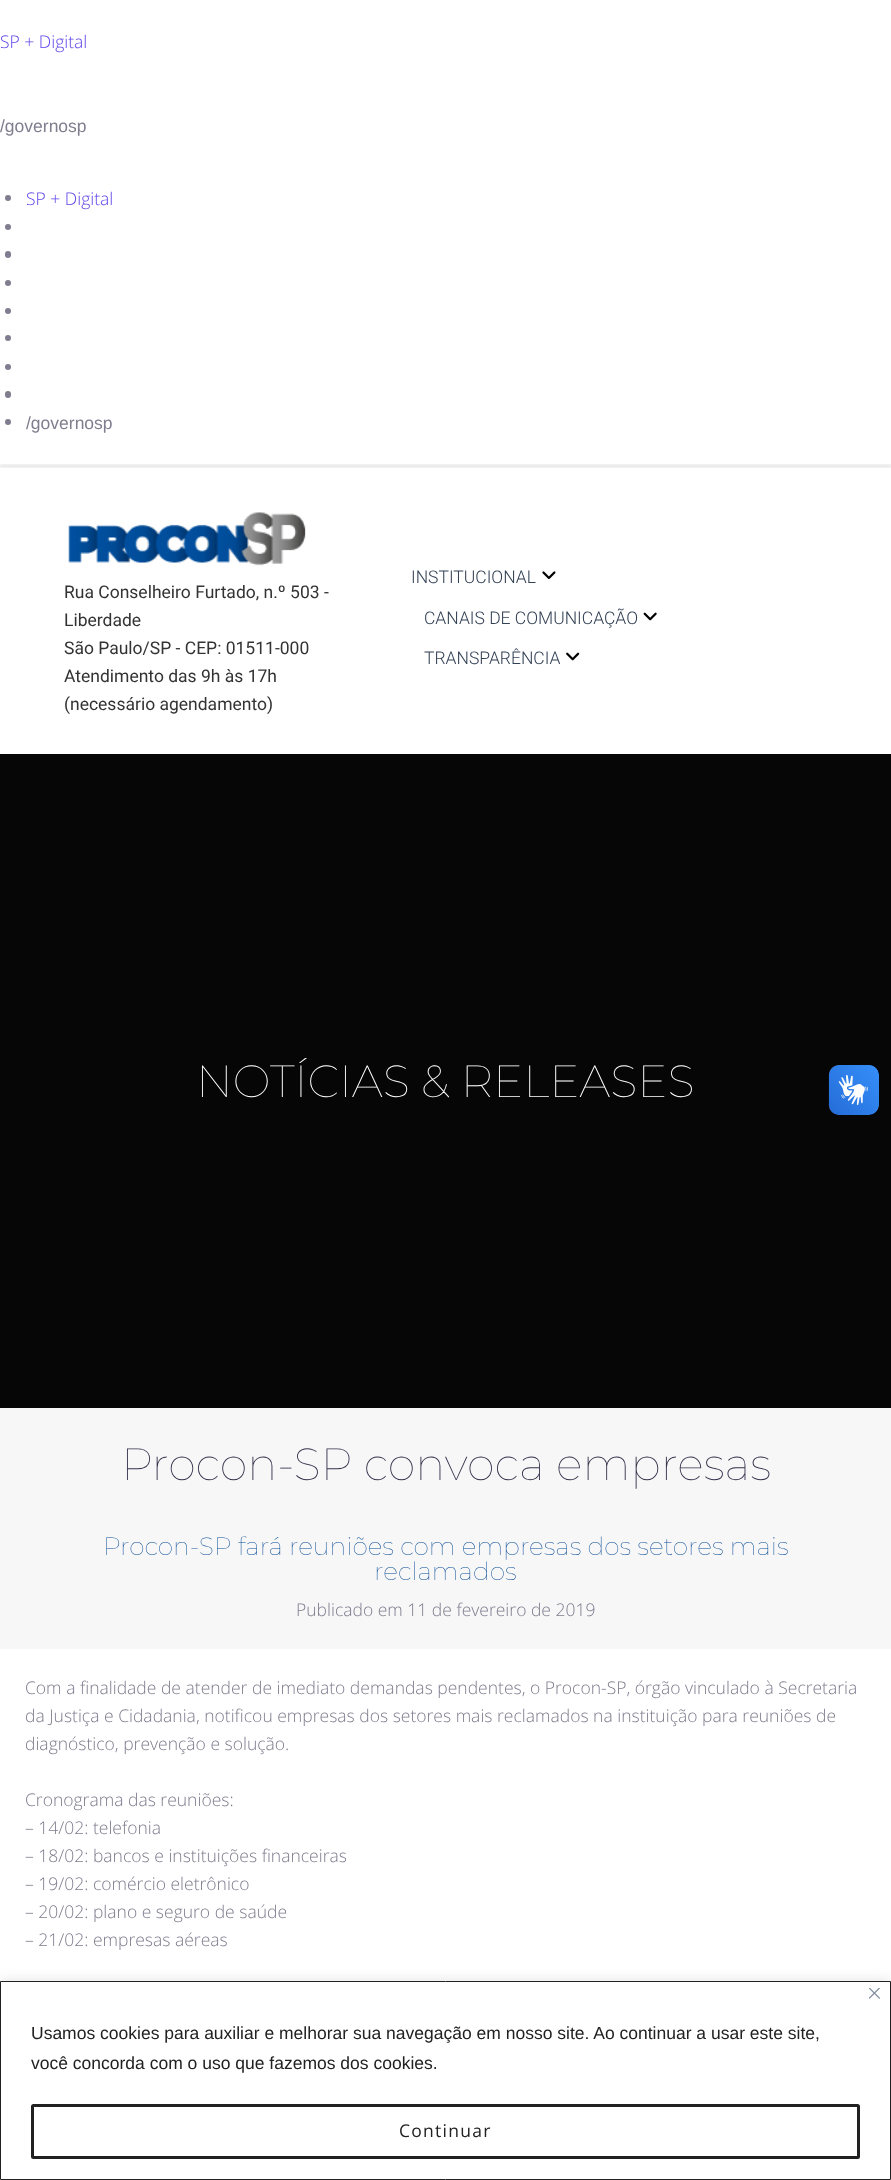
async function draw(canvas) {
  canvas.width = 891
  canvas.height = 2180
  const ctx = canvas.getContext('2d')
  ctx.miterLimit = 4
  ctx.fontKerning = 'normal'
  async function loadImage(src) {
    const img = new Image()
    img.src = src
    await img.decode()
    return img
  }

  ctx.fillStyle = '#fff'
  ctx.fillRect(0, 0, 891, 2180)
  ctx.font = '300 17.5px Open Sans'
  ctx.fillStyle = '#5f45ea'
  ctx.fillText('SP + Digital', 0, 48)
  ctx.font = '17.5px Liberation Sans'
  ctx.fillStyle = '#7f7d8e'
  ctx.fillText('/governosp', 0, 132)
  ctx.beginPath()
  ctx.arc(8, 198, 3, 0, 2 * Math.PI)
  ctx.fill()
  ctx.font = '300 17.5px Open Sans'
  ctx.fillStyle = '#5f45ea'
  ctx.fillText('SP + Digital', 26, 205)
  ctx.fillStyle = '#7f7d8e'
  ctx.beginPath()
  ctx.arc(8, 227, 3, 0, 2 * Math.PI)
  ctx.fill()
  ctx.beginPath()
  ctx.roundRect(5, 251, 6, 7, 3)
  ctx.fill()
  ctx.beginPath()
  ctx.arc(8, 283, 3, 0, 2 * Math.PI)
  ctx.fill()
  ctx.beginPath()
  ctx.arc(8, 311, 3, 0, 2 * Math.PI)
  ctx.fill()
  ctx.beginPath()
  ctx.arc(8, 338, 3, 0, 2 * Math.PI)
  ctx.fill()
  ctx.beginPath()
  ctx.arc(8, 367, 3, 0, 2 * Math.PI)
  ctx.fill()
  ctx.beginPath()
  ctx.roundRect(5, 391, 6, 7, 3)
  ctx.fill()
  ctx.beginPath()
  ctx.arc(8, 422, 3, 0, 2 * Math.PI)
  ctx.fill()
  ctx.font = '17.5px Liberation Sans'
  ctx.fillText('/governosp', 26, 429)
  ctx.fillStyle = '#ebeced'
  ctx.beginPath()
  ctx.rect(0.5, 464.5, 890, 3)
  ctx.fill()
  ctx.strokeStyle = '#f2f2f2'
  ctx.stroke()
  ctx.drawImage(await loadImage('image0.png'), 68, 512, 238, 54)
  ctx.font = '17.5px Roboto'
  ctx.fillStyle = '#333'
  ctx.fillText('Rua Conselheiro Furtado, n.º 503 -', 64, 598)
  ctx.fillText('Liberdade', 64, 626)
  ctx.fillText('São Paulo/SP - CEP: 01511-000', 64, 654)
  ctx.fillText('Atendimento das 9h às 17h', 64, 682)
  ctx.fillText('(necessário agendamento)', 64, 710)
  ctx.font = '300 17.5px Roboto'
  ctx.fillStyle = '#334155'
  ctx.fillText('INSTITUCIONAL', 411, 583)
  ctx.drawImage(await loadImage('image1.png'), 542, 571, 14, 8)
  ctx.fillText('CANAIS DE COMUNICAÇÃO', 424, 624)
  ctx.drawImage(await loadImage('image2.png'), 643, 612, 14, 9)
  ctx.fillText('TRANSPARÊNCIA', 424, 664)
  ctx.drawImage(await loadImage('image3.png'), 566, 652, 14, 9)
  ctx.fillStyle = '#060606'
  ctx.fillRect(0, 754, 891, 654)
  ctx.font = '100 45px Montserrat'
  ctx.fillStyle = '#fff'
  ctx.fillText('NOTÍCIAS & RELEASES', 196, 1097)
  ctx.fillStyle = '#f7f7f7'
  ctx.fillRect(0, 1408, 891, 241)
  ctx.fillStyle = '#34314b'
  ctx.fillText('Procon-SP convoca empresas', 121, 1480)
  ctx.font = '100 25px Montserrat'
  ctx.fillStyle = '#004694'
  ctx.fillText('Procon-SP fará reuniões com empresas dos setores mais', 103, 1555)
  ctx.fillText('reclamados', 374, 1580)
  ctx.font = '300 17.5px Open Sans'
  ctx.fillStyle = '#7f7d8e'
  ctx.fillText('Publicado em 11 de fevereiro de 2019', 296, 1616)
  ctx.fillText('Com a finalidade de atender de imediato demandas pendentes, o Procon-SP, órgão vinculado à Secretaria', 25, 1694)
  ctx.fillText('da Justiça e Cidadania, notificou empresas dos setores mais reclamados na instituição para reuniões de', 25, 1722)
  ctx.fillText('diagnóstico, prevenção e solução.', 25, 1750)
  ctx.fillText('Cronograma das reuniões:', 25, 1806)
  ctx.fillText('– 14/02: telefonia', 25, 1834)
  ctx.fillText('– 18/02: bancos e instituições financeiras', 25, 1862)
  ctx.fillText('– 19/02: comércio eletrônico', 25, 1890)
  ctx.fillText('– 20/02: plano e seguro de saúde', 25, 1918)
  ctx.fillText('– 21/02: empresas aéreas', 25, 1946)
  ctx.drawImage(await loadImage('image4.png'), 828, 1065, 51, 50)
  ctx.drawImage(await loadImage('image5.png'), 829, 1065, 50, 50)
  ctx.fillStyle = '#acabab4d'
  ctx.filter = 'blur(6px)'
  ctx.beginPath()
  ctx.rect(0, 1980, 891, 199)
  ctx.fill()
  ctx.filter = 'none'
  ctx.fillStyle = '#fff'
  ctx.beginPath()
  ctx.rect(0.5, 1981.5, 890, 198)
  ctx.fill()
  ctx.strokeStyle = '#212121'
  ctx.stroke()
  ctx.drawImage(await loadImage('image6.png'), 869, 1988, 11, 11)
  ctx.font = '17.5px Liberation Sans'
  ctx.fillStyle = '#212121'
  ctx.fillText('Usamos cookies para auxiliar e melhorar sua navegação em nosso site. Ao continuar a usar este site,', 31, 2039)
  ctx.fillText('você concorda com o uso que fazemos dos cookies.', 31, 2069)
  ctx.beginPath()
  ctx.roundRect(32.5, 2105.5, 826, 52, 1)
  ctx.lineWidth = 3
  ctx.stroke()
  ctx.letterSpacing = '1.25px'
  ctx.font = '17.5px Open Sans'
  ctx.fillText('Continuar', 399, 2137)
}

draw(document.querySelector('canvas'))
